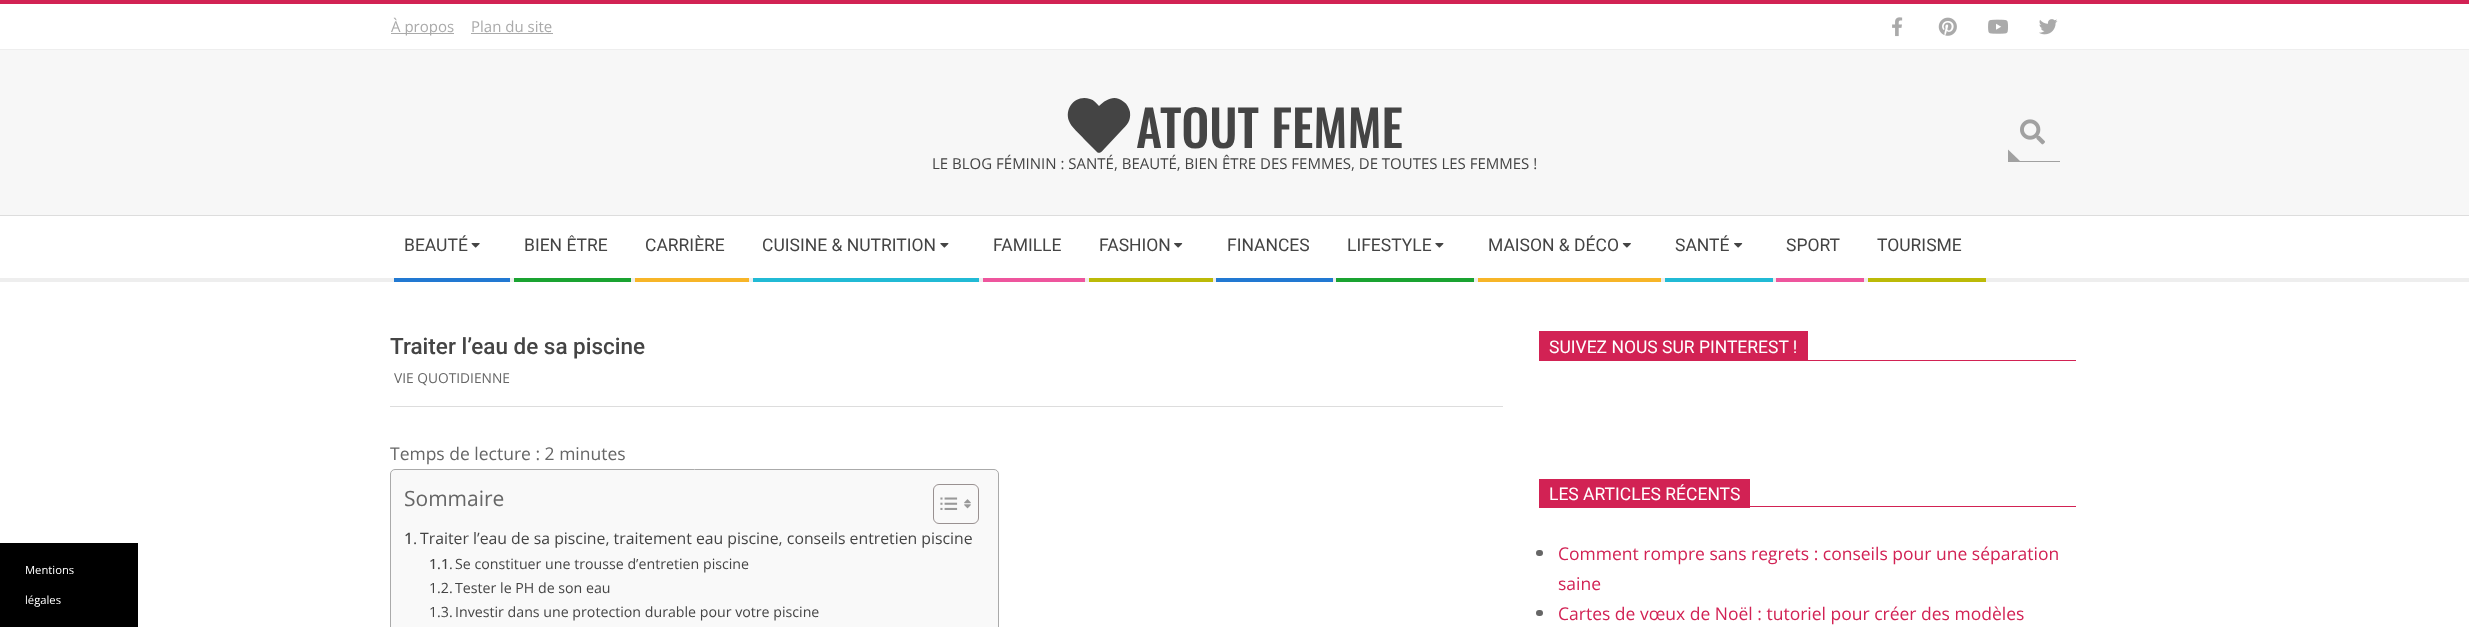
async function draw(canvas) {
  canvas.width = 2469
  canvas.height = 627
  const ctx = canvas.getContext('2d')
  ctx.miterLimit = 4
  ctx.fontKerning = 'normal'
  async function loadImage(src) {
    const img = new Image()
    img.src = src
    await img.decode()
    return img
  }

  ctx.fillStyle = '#f7f7f7'
  ctx.fillRect(0, 0, 2469, 627)
  ctx.fillStyle = '#d22254'
  ctx.fillRect(0, 0, 2469, 4)
  ctx.fillStyle = '#fff'
  ctx.fillRect(0, 4, 2469, 45)
  ctx.fillStyle = '#eee'
  ctx.fillRect(0, 49, 2469, 1)
  ctx.fillStyle = '#aaa'
  ctx.fillRect(391, 33, 63, 1)
  ctx.font = '15px Open Sans'
  ctx.fillText('À propos', 391, 32)
  ctx.fillText('Plan du site', 471, 32)
  ctx.fillRect(471, 33, 82, 1)
  ctx.drawImage(await loadImage('image0.png'), 1892, 17, 11, 20)
  ctx.drawImage(await loadImage('image1.png'), 1938, 17, 19, 19)
  ctx.drawImage(await loadImage('image2.png'), 1988, 19, 20, 15)
  ctx.drawImage(await loadImage('image3.png'), 2039, 19, 19, 16)
  ctx.fillStyle = '#fff'
  ctx.fillRect(0, 282, 2469, 345)
  ctx.fillStyle = '#000'
  ctx.fillRect(0, 543, 138, 84)
  ctx.font = '11.25px Open Sans'
  ctx.fillStyle = '#fff'
  ctx.fillText('Mentions', 25, 574)
  ctx.fillText('légales', 25, 604)
  ctx.fillStyle = '#ddd'
  ctx.fillRect(0, 215, 2469, 1)
  ctx.fillStyle = '#444'
  ctx.beginPath()
  ctx.moveTo(1124, 102)
  ctx.bezierCurveTo(1127, 104, 1129, 108, 1130, 112)
  ctx.bezierCurveTo(1131, 121, 1127, 125, 1121, 131)
  ctx.lineTo(1106, 147)
  ctx.bezierCurveTo(1104, 149, 1100, 155, 1097, 152)
  ctx.lineTo(1084, 139)
  ctx.bezierCurveTo(1080, 134, 1071, 127, 1069, 121)
  ctx.bezierCurveTo(1064, 108, 1076, 94, 1090, 99)
  ctx.bezierCurveTo(1094, 100, 1096, 103, 1099, 106)
  ctx.bezierCurveTo(1106, 99, 1115, 94, 1124, 102)
  ctx.closePath()
  ctx.fill()
  ctx.font = '500 50px Oswald'
  ctx.fillText('ATOUT FEMME', 1136, 148)
  ctx.font = '15px Open Sans'
  ctx.fillText('LE BLOG FÉMININ : SANTÉ, BEAUTÉ, BIEN ÊTRE DES FEMMES, DE TOUTES LES FEMMES !', 932, 169)
  ctx.fillStyle = '#a1a1a1'
  ctx.fillRect(2008, 161, 52, 1)
  ctx.drawImage(await loadImage('image4.png'), 2020, 119, 25, 26)
  ctx.save()
  ctx.beginPath()
  ctx.rect(2008, 103, 52, 58)
  ctx.clip()
  ctx.beginPath()
  ctx.moveTo(2007.5, 161)
  ctx.lineTo(2007.5, 149)
  ctx.lineTo(2020, 161)
  ctx.closePath()
  ctx.fill()
  ctx.restore()
  ctx.fillStyle = '#fff'
  ctx.fillRect(0, 216, 2469, 62)
  ctx.fillStyle = '#eee'
  ctx.fillRect(0, 278, 2469, 4)
  ctx.font = '17.5px Roboto'
  ctx.fillStyle = '#444'
  ctx.fillText('BEAUTÉ', 404, 251)
  ctx.drawImage(await loadImage('image5.png'), 471, 243, 9, 5)
  ctx.fillStyle = '#2279d2'
  ctx.fillRect(394, 278, 116, 4)
  ctx.fillStyle = '#444'
  ctx.fillText('BIEN ÊTRE', 524, 251)
  ctx.fillStyle = '#1aa331'
  ctx.fillRect(514, 278, 117, 4)
  ctx.fillStyle = '#444'
  ctx.fillText('CARRIÈRE', 645, 251)
  ctx.fillStyle = '#f7b528'
  ctx.fillRect(635, 278, 114, 4)
  ctx.fillStyle = '#444'
  ctx.fillText('CUISINE & NUTRITION', 762, 251)
  ctx.drawImage(await loadImage('image6.png'), 940, 243, 9, 5)
  ctx.fillStyle = '#21bad5'
  ctx.fillRect(753, 278, 226, 4)
  ctx.fillStyle = '#444'
  ctx.fillText('FAMILLE', 993, 251)
  ctx.fillStyle = '#ee559d'
  ctx.fillRect(983, 278, 102, 4)
  ctx.fillStyle = '#444'
  ctx.fillText('FASHION', 1099, 251)
  ctx.drawImage(await loadImage('image7.png'), 1174, 243, 9, 5)
  ctx.fillStyle = '#bcba08'
  ctx.fillRect(1089, 278, 124, 4)
  ctx.fillStyle = '#444'
  ctx.fillText('FINANCES', 1227, 251)
  ctx.fillStyle = '#2279d2'
  ctx.fillRect(1216, 278, 117, 4)
  ctx.fillStyle = '#444'
  ctx.fillText('LIFESTYLE', 1347, 251)
  ctx.drawImage(await loadImage('image6.png'), 1435, 243, 9, 5)
  ctx.fillStyle = '#1aa331'
  ctx.fillRect(1336, 278, 138, 4)
  ctx.fillStyle = '#444'
  ctx.fillText('MAISON & DÉCO', 1488, 251)
  ctx.drawImage(await loadImage('image8.png'), 1622, 243, 9, 5)
  ctx.fillStyle = '#f7b528'
  ctx.fillRect(1478, 278, 183, 4)
  ctx.fillStyle = '#444'
  ctx.fillText('SANTÉ', 1675, 251)
  ctx.drawImage(await loadImage('image7.png'), 1734, 243, 9, 5)
  ctx.fillStyle = '#21bad5'
  ctx.fillRect(1665, 278, 108, 4)
  ctx.fillStyle = '#444'
  ctx.fillText('SPORT', 1786, 251)
  ctx.fillStyle = '#ee559d'
  ctx.fillRect(1776, 278, 88, 4)
  ctx.fillStyle = '#444'
  ctx.fillText('TOURISME', 1877, 251)
  ctx.fillStyle = '#bcba08'
  ctx.fillRect(1868, 278, 118, 4)
  ctx.fillStyle = '#ddd'
  ctx.fillRect(390, 406, 1113, 1)
  ctx.font = '500 22.5px Roboto'
  ctx.fillStyle = '#444'
  ctx.fillText('Traiter l’eau de sa piscine', 390, 354)
  ctx.font = '13.75px Open Sans'
  ctx.fillStyle = '#666'
  ctx.fillText('VIE QUOTIDIENNE', 394, 383)
  ctx.font = '17.5px Open Sans'
  ctx.fillText('Temps de lecture : 2 minutes', 390, 460)
  ctx.fillStyle = '#f9f9f9'
  ctx.beginPath()
  ctx.roundRect(390.5, 469.5, 608, 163, 4.5)
  ctx.fill()
  ctx.strokeStyle = '#aaa'
  ctx.stroke()
  ctx.font = '21px Open Sans'
  ctx.fillStyle = '#666'
  ctx.fillText('Sommaire', 404, 506)
  ctx.beginPath()
  ctx.roundRect(933.5, 484.5, 45, 39, 5.5)
  ctx.strokeStyle = '#999191'
  ctx.stroke()
  ctx.drawImage(await loadImage('image9.png'), 940, 497, 18, 13)
  ctx.drawImage(await loadImage('image10.png'), 964, 499, 7, 10)
  ctx.font = '500 15.8px Open Sans'
  ctx.fillStyle = '#444'
  ctx.fillText('1', 404, 544)
  ctx.font = '15.8px Open Sans'
  ctx.fillText('.', 413, 544)
  ctx.fillText('Traiter l’eau de sa piscine, traitement eau piscine, conseils entretien piscine', 420, 544)
  ctx.font = '500 14.2px Open Sans'
  ctx.fillText('1.1', 429, 569)
  ctx.font = '14.2px Open Sans'
  ctx.fillText('.', 449, 569)
  ctx.fillText('Se constituer une trousse d’entretien piscine', 455, 569)
  ctx.fillText('1.2.', 429, 593)
  ctx.fillText('Tester le PH de son eau', 455, 593)
  ctx.fillText('1.3.', 429, 617)
  ctx.fillText('Investir dans une protection durable pour votre piscine', 455, 617)
  ctx.fillStyle = '#d22254'
  ctx.fillRect(1539, 331, 269, 29)
  ctx.font = '17.5px Roboto'
  ctx.fillStyle = '#fff'
  ctx.fillText('SUIVEZ NOUS SUR PINTEREST !', 1549, 353)
  ctx.fillStyle = '#d22254'
  ctx.fillRect(1539, 360, 537, 1)
  ctx.fillRect(1539, 479, 211, 29)
  ctx.fillStyle = '#fff'
  ctx.fillText('LES ARTICLES RÉCENTS', 1549, 500)
  ctx.fillStyle = '#d22254'
  ctx.fillRect(1750, 506, 326, 1)
  ctx.fillStyle = '#666'
  ctx.beginPath()
  ctx.roundRect(1536, 550, 7, 6, 3)
  ctx.fill()
  ctx.font = '17.5px Open Sans'
  ctx.fillStyle = '#d22254'
  ctx.fillText('Comment rompre sans regrets : conseils pour une séparation', 1558, 560)
  ctx.fillText('saine', 1558, 590)
  ctx.fillStyle = '#666'
  ctx.beginPath()
  ctx.roundRect(1536, 610, 7, 6, 3)
  ctx.fill()
  ctx.fillStyle = '#d22254'
  ctx.fillText('Cartes de vœux de Noël : tutoriel pour créer des modèles', 1558, 620)
}

draw(document.querySelector('canvas'))
